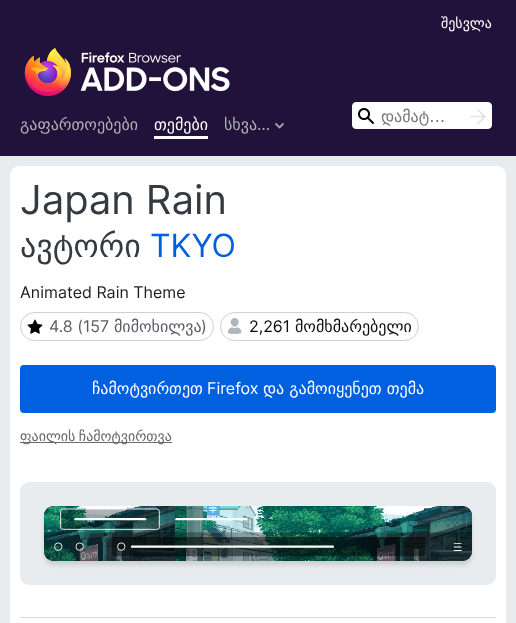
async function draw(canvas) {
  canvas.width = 516
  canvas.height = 623
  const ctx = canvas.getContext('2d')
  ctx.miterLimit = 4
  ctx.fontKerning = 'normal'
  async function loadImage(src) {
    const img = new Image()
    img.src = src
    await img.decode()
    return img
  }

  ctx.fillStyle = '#20123a'
  ctx.fillRect(0, 0, 516, 623)
  ctx.font = '14px DejaVu Sans'
  ctx.fillStyle = '#fff'
  ctx.fillText('შესვლა', 441, 28)
  ctx.drawImage(await loadImage('image0.png'), 24, 48, 206, 48)
  ctx.font = '16px DejaVu Sans'
  ctx.fillStyle = '#b1b1b3'
  ctx.fillText('გაფართოებები', 20, 130)
  ctx.fillStyle = '#fff'
  ctx.fillText('თემები', 154, 130)
  ctx.fillRect(154, 136, 54, 3)
  ctx.fillStyle = '#b1b1b3'
  ctx.fillText('სხვა', 224, 130)
  ctx.font = '16px Inter'
  ctx.fillText('…', 257, 130)
  ctx.beginPath()
  ctx.moveTo(283, 124)
  ctx.lineTo(279.5, 127.5)
  ctx.lineTo(276, 124)
  ctx.strokeStyle = '#a6a0b0'
  ctx.lineWidth = 1.8
  ctx.lineCap = 'round'
  ctx.lineJoin = 'round'
  ctx.stroke()
  ctx.fillStyle = '#fff'
  ctx.beginPath()
  ctx.roundRect(352.5, 102.5, 139, 26, 3.5)
  ctx.fill()
  ctx.strokeStyle = '#fff'
  ctx.lineWidth = 1
  ctx.lineJoin = 'miter'
  ctx.stroke()
  ctx.drawImage(await loadImage('image1.png'), 358, 108, 16, 16)
  ctx.wordSpacing = '-1px'
  ctx.font = '16px DejaVu Sans'
  ctx.fillStyle = '#757575'
  ctx.fillText('დამატ…', 381, 122)
  ctx.beginPath()
  ctx.moveTo(471, 116.5)
  ctx.lineTo(484, 116.5)
  ctx.moveTo(478, 110)
  ctx.lineTo(485, 116.5)
  ctx.lineTo(478, 123.5)
  ctx.strokeStyle = '#e1e1e5'
  ctx.lineWidth = 1.7
  ctx.lineJoin = 'round'
  ctx.stroke()
  ctx.fillStyle = '#e9ecef'
  ctx.fillRect(0, 156, 516, 467)
  ctx.fillStyle = '#fff'
  ctx.beginPath()
  ctx.roundRect(10, 166, 496, 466, 9)
  ctx.fill()
  ctx.wordSpacing = '0px'
  ctx.font = '40px Inter'
  ctx.fillStyle = '#343a40'
  ctx.fillText('Japan Rain', 20, 214)
  ctx.font = '32px DejaVu Sans'
  ctx.fillText('ავტორი', 20, 257)
  ctx.font = '32px Inter'
  ctx.fillStyle = '#0060df'
  ctx.fillText('TKYO', 150, 257)
  ctx.font = '16px Inter'
  ctx.fillStyle = '#1d1d1d'
  ctx.fillText('Animated Rain Theme', 20, 298)
  ctx.beginPath()
  ctx.roundRect(20.5, 312.5, 193, 28, 14)
  ctx.strokeStyle = '#cfcfd8'
  ctx.lineWidth = 1
  ctx.lineJoin = 'miter'
  ctx.stroke()
  ctx.drawImage(await loadImage('image2.png'), 27, 319, 16, 15)
  ctx.fillStyle = '#5b5b66'
  ctx.fillText('4.8 (157', 49, 332)
  ctx.font = '16px DejaVu Sans'
  ctx.fillText('მიმოხილვა', 114, 332)
  ctx.font = '16px Inter'
  ctx.fillText(')', 201, 332)
  ctx.beginPath()
  ctx.roundRect(220.5, 312.5, 198, 28, 14)
  ctx.stroke()
  ctx.drawImage(await loadImage('image3.png'), 228, 318, 14, 16)
  ctx.fillStyle = '#0c0c0d'
  ctx.fillText('2,261', 249, 332)
  ctx.font = '16px DejaVu Sans'
  ctx.fillText('მომხმარებელი', 295, 332)
  ctx.fillStyle = '#0060df'
  ctx.beginPath()
  ctx.roundRect(20, 365, 476, 48, 4)
  ctx.fill()
  ctx.fillStyle = '#fff'
  ctx.fillText('ჩამოტვირთეთ', 92, 394)
  ctx.font = '16px Inter'
  ctx.fillText('Firefox', 207, 394)
  ctx.font = '16px DejaVu Sans'
  ctx.fillText('და გამოიყენეთ თემა', 263, 394)
  ctx.fillStyle = '#6a6a6a'
  ctx.fillRect(20, 442, 152, 1)
  ctx.wordSpacing = '-1px'
  ctx.font = '14px DejaVu Sans'
  ctx.fillText('ფაილის ჩამოტვირთვა', 20, 441)
  ctx.fillStyle = '#e9ecef'
  ctx.beginPath()
  ctx.roundRect(20, 482, 476, 103, 9)
  ctx.fill()
  ctx.fillStyle = '#0000001f'
  ctx.filter = 'blur(2px)'
  ctx.beginPath()
  ctx.roundRect(44, 510, 428, 55, 9)
  ctx.fill()
  ctx.filter = 'none'
  ctx.drawImage(await loadImage('image4.png'), 44, 506, 428, 55)
  ctx.fillStyle = '#d7d7db'
  ctx.fillRect(20, 617, 476, 1)
}

draw(document.querySelector('canvas'))
